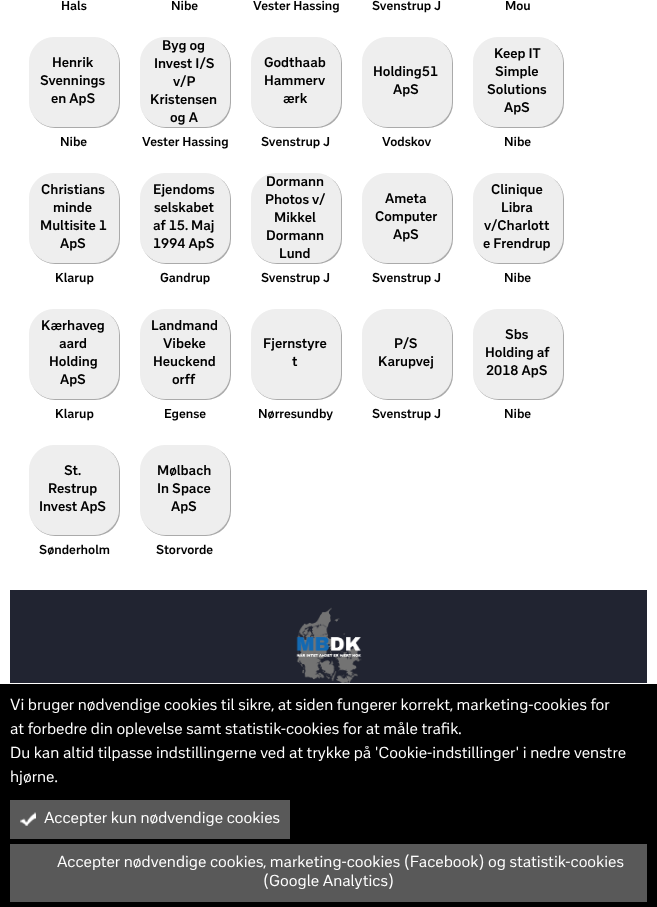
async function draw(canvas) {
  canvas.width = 657
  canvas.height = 907
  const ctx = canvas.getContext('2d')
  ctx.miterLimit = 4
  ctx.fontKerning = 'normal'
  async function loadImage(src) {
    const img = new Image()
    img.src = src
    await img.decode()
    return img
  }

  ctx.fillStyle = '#fff'
  ctx.fillRect(0, 0, 657, 907)
  ctx.font = 'bold 13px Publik'
  ctx.fillStyle = '#000'
  ctx.fillText('Hals', 61, 10)
  ctx.fillText('Nibe', 171, 10)
  ctx.fillText('Vester Hassing', 253, 10)
  ctx.fillText('Svenstrup J', 372, 10)
  ctx.fillText('Mou', 505, 10)
  ctx.fillStyle = '#aaa'
  ctx.filter = 'blur(0.5px)'
  ctx.beginPath()
  ctx.roundRect(30, 38, 90, 90, 25)
  ctx.fill()
  ctx.filter = 'none'
  ctx.fillStyle = '#eee'
  ctx.beginPath()
  ctx.roundRect(29.5, 37.5, 89, 89, 24.5)
  ctx.fill()
  ctx.strokeStyle = '#eee'
  ctx.stroke()
  ctx.font = 'bold 14px Publik'
  ctx.fillStyle = '#000'
  ctx.fillText('Henrik', 52, 67)
  ctx.fillText('Svennings', 40, 85)
  ctx.fillText('en ApS', 51, 103)
  ctx.font = 'bold 13px Publik'
  ctx.fillText('Nibe', 60, 146)
  ctx.fillStyle = '#aaa'
  ctx.filter = 'blur(0.5px)'
  ctx.beginPath()
  ctx.roundRect(141, 38, 90, 90, 25)
  ctx.fill()
  ctx.filter = 'none'
  ctx.fillStyle = '#eee'
  ctx.beginPath()
  ctx.roundRect(140.5, 37.5, 89, 89, 24.5)
  ctx.fill()
  ctx.stroke()
  ctx.font = 'bold 14px Publik'
  ctx.fillStyle = '#000'
  ctx.fillText('Byg og', 162, 50)
  ctx.fillText('Invest I/S', 154, 68)
  ctx.fillText('v/P', 173, 86)
  ctx.fillText('Kristensen', 150, 104)
  ctx.fillText('og A', 170, 122)
  ctx.font = 'bold 13px Publik'
  ctx.fillText('Vester Hassing', 142, 146)
  ctx.fillStyle = '#aaa'
  ctx.filter = 'blur(0.5px)'
  ctx.beginPath()
  ctx.roundRect(252, 38, 90, 90, 25)
  ctx.fill()
  ctx.filter = 'none'
  ctx.fillStyle = '#eee'
  ctx.beginPath()
  ctx.roundRect(251.5, 37.5, 89, 89, 24.5)
  ctx.fill()
  ctx.stroke()
  ctx.font = 'bold 14px Publik'
  ctx.fillStyle = '#000'
  ctx.fillText('Godthaab', 264, 67)
  ctx.fillText('Hammerv', 264, 85)
  ctx.fillText('ærk', 283, 103)
  ctx.font = 'bold 13px Publik'
  ctx.fillText('Svenstrup J', 261, 146)
  ctx.fillStyle = '#aaa'
  ctx.filter = 'blur(0.5px)'
  ctx.beginPath()
  ctx.roundRect(363, 38, 90, 90, 25)
  ctx.fill()
  ctx.filter = 'none'
  ctx.fillStyle = '#eee'
  ctx.beginPath()
  ctx.roundRect(362.5, 37.5, 89, 89, 24.5)
  ctx.fill()
  ctx.stroke()
  ctx.font = 'bold 14px Publik'
  ctx.fillStyle = '#000'
  ctx.fillText('Holding51', 373, 76)
  ctx.fillText('ApS', 393, 94)
  ctx.font = 'bold 13px Publik'
  ctx.fillText('Vodskov', 382, 146)
  ctx.fillStyle = '#aaa'
  ctx.filter = 'blur(0.5px)'
  ctx.beginPath()
  ctx.roundRect(474, 38, 90, 90, 25)
  ctx.fill()
  ctx.filter = 'none'
  ctx.fillStyle = '#eee'
  ctx.beginPath()
  ctx.roundRect(473.5, 37.5, 89, 89, 24.5)
  ctx.fill()
  ctx.stroke()
  ctx.font = 'bold 14px Publik'
  ctx.fillStyle = '#000'
  ctx.fillText('Keep IT', 494, 58)
  ctx.fillText('Simple', 495, 76)
  ctx.fillText('Solutions', 487, 94)
  ctx.fillText('ApS', 504, 112)
  ctx.font = 'bold 13px Publik'
  ctx.fillText('Nibe', 504, 146)
  ctx.fillStyle = '#aaa'
  ctx.filter = 'blur(0.5px)'
  ctx.beginPath()
  ctx.roundRect(30, 174, 90, 90, 25)
  ctx.fill()
  ctx.filter = 'none'
  ctx.fillStyle = '#eee'
  ctx.beginPath()
  ctx.roundRect(29.5, 173.5, 89, 89, 24.5)
  ctx.fill()
  ctx.stroke()
  ctx.font = 'bold 14px Publik'
  ctx.fillStyle = '#000'
  ctx.fillText('Christians', 41, 194)
  ctx.fillText('minde', 53, 212)
  ctx.fillText('Multisite 1', 40, 230)
  ctx.fillText('ApS', 60, 248)
  ctx.font = 'bold 13px Publik'
  ctx.fillText('Klarup', 55, 282)
  ctx.fillStyle = '#aaa'
  ctx.filter = 'blur(0.5px)'
  ctx.beginPath()
  ctx.roundRect(141, 174, 90, 90, 25)
  ctx.fill()
  ctx.filter = 'none'
  ctx.fillStyle = '#eee'
  ctx.beginPath()
  ctx.roundRect(140.5, 173.5, 89, 89, 24.5)
  ctx.fill()
  ctx.stroke()
  ctx.font = 'bold 14px Publik'
  ctx.fillStyle = '#000'
  ctx.fillText('Ejendoms', 153, 194)
  ctx.fillText('selskabet', 154, 212)
  ctx.fillText('af 15. Maj', 153, 230)
  ctx.fillText('1994 ApS', 153, 248)
  ctx.font = 'bold 13px Publik'
  ctx.fillText('Gandrup', 160, 282)
  ctx.fillStyle = '#aaa'
  ctx.filter = 'blur(0.5px)'
  ctx.beginPath()
  ctx.roundRect(252, 174, 90, 90, 25)
  ctx.fill()
  ctx.filter = 'none'
  ctx.fillStyle = '#eee'
  ctx.beginPath()
  ctx.roundRect(251.5, 173.5, 89, 89, 24.5)
  ctx.fill()
  ctx.stroke()
  ctx.font = 'bold 14px Publik'
  ctx.fillStyle = '#000'
  ctx.fillText('Dormann', 266, 186)
  ctx.fillText('Photos v/', 265, 204)
  ctx.fillText('Mikkel', 274, 222)
  ctx.fillText('Dormann', 266, 240)
  ctx.fillText('Lund', 279, 258)
  ctx.font = 'bold 13px Publik'
  ctx.fillText('Svenstrup J', 261, 282)
  ctx.fillStyle = '#aaa'
  ctx.filter = 'blur(0.5px)'
  ctx.beginPath()
  ctx.roundRect(363, 174, 90, 90, 25)
  ctx.fill()
  ctx.filter = 'none'
  ctx.fillStyle = '#eee'
  ctx.beginPath()
  ctx.roundRect(362.5, 173.5, 89, 89, 24.5)
  ctx.fill()
  ctx.stroke()
  ctx.font = 'bold 14px Publik'
  ctx.fillStyle = '#000'
  ctx.fillText('Ameta', 385, 203)
  ctx.fillText('Computer', 375, 221)
  ctx.fillText('ApS', 393, 239)
  ctx.font = 'bold 13px Publik'
  ctx.fillText('Svenstrup J', 372, 282)
  ctx.fillStyle = '#aaa'
  ctx.filter = 'blur(0.5px)'
  ctx.beginPath()
  ctx.roundRect(474, 174, 90, 90, 25)
  ctx.fill()
  ctx.filter = 'none'
  ctx.fillStyle = '#eee'
  ctx.beginPath()
  ctx.roundRect(473.5, 173.5, 89, 89, 24.5)
  ctx.fill()
  ctx.stroke()
  ctx.font = 'bold 14px Publik'
  ctx.fillStyle = '#000'
  ctx.fillText('Clinique', 491, 194)
  ctx.fillText('Libra', 501, 212)
  ctx.fillText('v/Charlott', 484, 230)
  ctx.fillText('e Frendrup', 483, 248)
  ctx.font = 'bold 13px Publik'
  ctx.fillText('Nibe', 504, 282)
  ctx.fillStyle = '#aaa'
  ctx.filter = 'blur(0.5px)'
  ctx.beginPath()
  ctx.roundRect(30, 310, 90, 90, 25)
  ctx.fill()
  ctx.filter = 'none'
  ctx.fillStyle = '#eee'
  ctx.beginPath()
  ctx.roundRect(29.5, 309.5, 89, 89, 24.5)
  ctx.fill()
  ctx.stroke()
  ctx.font = 'bold 14px Publik'
  ctx.fillStyle = '#000'
  ctx.fillText('Kærhaveg', 41, 330)
  ctx.fillText('aard', 59, 348)
  ctx.fillText('Holding', 49, 366)
  ctx.fillText('ApS', 60, 384)
  ctx.font = 'bold 13px Publik'
  ctx.fillText('Klarup', 55, 418)
  ctx.fillStyle = '#aaa'
  ctx.filter = 'blur(0.5px)'
  ctx.beginPath()
  ctx.roundRect(141, 310, 90, 90, 25)
  ctx.fill()
  ctx.filter = 'none'
  ctx.fillStyle = '#eee'
  ctx.beginPath()
  ctx.roundRect(140.5, 309.5, 89, 89, 24.5)
  ctx.fill()
  ctx.stroke()
  ctx.font = 'bold 14px Publik'
  ctx.fillStyle = '#000'
  ctx.fillText('Landmand', 151, 330)
  ctx.fillText('Vibeke', 163, 348)
  ctx.fillText('Heuckend', 153, 366)
  ctx.fillText('orff', 172, 384)
  ctx.font = 'bold 13px Publik'
  ctx.fillText('Egense', 164, 418)
  ctx.fillStyle = '#aaa'
  ctx.filter = 'blur(0.5px)'
  ctx.beginPath()
  ctx.roundRect(252, 310, 90, 90, 25)
  ctx.fill()
  ctx.filter = 'none'
  ctx.fillStyle = '#eee'
  ctx.beginPath()
  ctx.roundRect(251.5, 309.5, 89, 89, 24.5)
  ctx.fill()
  ctx.stroke()
  ctx.font = 'bold 14px Publik'
  ctx.fillStyle = '#000'
  ctx.fillText('Fjernstyre', 263, 348)
  ctx.fillText('t', 292, 366)
  ctx.font = 'bold 13px Publik'
  ctx.fillText('Nørresundby', 258, 418)
  ctx.fillStyle = '#aaa'
  ctx.filter = 'blur(0.5px)'
  ctx.beginPath()
  ctx.roundRect(363, 310, 90, 90, 25)
  ctx.fill()
  ctx.filter = 'none'
  ctx.fillStyle = '#eee'
  ctx.beginPath()
  ctx.roundRect(362.5, 309.5, 89, 89, 24.5)
  ctx.fill()
  ctx.stroke()
  ctx.font = 'bold 14px Publik'
  ctx.fillStyle = '#000'
  ctx.fillText('P/S', 394, 348)
  ctx.fillText('Karupvej', 378, 366)
  ctx.font = 'bold 13px Publik'
  ctx.fillText('Svenstrup J', 372, 418)
  ctx.fillStyle = '#aaa'
  ctx.filter = 'blur(0.5px)'
  ctx.beginPath()
  ctx.roundRect(474, 310, 90, 90, 25)
  ctx.fill()
  ctx.filter = 'none'
  ctx.fillStyle = '#eee'
  ctx.beginPath()
  ctx.roundRect(473.5, 309.5, 89, 89, 24.5)
  ctx.fill()
  ctx.stroke()
  ctx.font = 'bold 14px Publik'
  ctx.fillStyle = '#000'
  ctx.fillText('Sbs', 505, 339)
  ctx.fillText('Holding af', 485, 357)
  ctx.fillText('2018 ApS', 486, 375)
  ctx.font = 'bold 13px Publik'
  ctx.fillText('Nibe', 504, 418)
  ctx.fillStyle = '#aaa'
  ctx.filter = 'blur(0.5px)'
  ctx.beginPath()
  ctx.roundRect(30, 446, 90, 90, 25)
  ctx.fill()
  ctx.filter = 'none'
  ctx.fillStyle = '#eee'
  ctx.beginPath()
  ctx.roundRect(29.5, 445.5, 89, 89, 24.5)
  ctx.fill()
  ctx.stroke()
  ctx.font = 'bold 14px Publik'
  ctx.fillStyle = '#000'
  ctx.fillText('St.', 64, 475)
  ctx.fillText('Restrup', 48, 493)
  ctx.fillText('Invest ApS', 39, 511)
  ctx.font = 'bold 13px Publik'
  ctx.fillText('Sønderholm', 39, 554)
  ctx.fillStyle = '#aaa'
  ctx.filter = 'blur(0.5px)'
  ctx.beginPath()
  ctx.roundRect(141, 446, 90, 90, 25)
  ctx.fill()
  ctx.filter = 'none'
  ctx.fillStyle = '#eee'
  ctx.beginPath()
  ctx.roundRect(140.5, 445.5, 89, 89, 24.5)
  ctx.fill()
  ctx.stroke()
  ctx.font = 'bold 14px Publik'
  ctx.fillStyle = '#000'
  ctx.fillText('Mølbach', 157, 475)
  ctx.fillText('In Space', 157, 493)
  ctx.fillText('ApS', 171, 511)
  ctx.font = 'bold 13px Publik'
  ctx.fillText('Storvorde', 156, 554)
  ctx.fillStyle = '#212431'
  ctx.fillRect(10, 590, 637, 93)
  ctx.drawImage(await loadImage('image0.png'), 296, 607, 66, 76)
  ctx.fillStyle = '#000'
  ctx.fillRect(0, 684, 657, 223)
  ctx.font = '16px Publik'
  ctx.fillStyle = '#fff'
  ctx.fillText('Vi bruger nødvendige cookies til sikre, at siden fungerer korrekt, marketing-cookies for', 10, 710)
  ctx.fillText('at forbedre din oplevelse samt statistik-cookies for at måle trafik.', 10, 734)
  ctx.fillText('Du kan altid tilpasse indstillingerne ved at trykke på \'Cookie-indstillinger\' i nedre venstre', 10, 758)
  ctx.fillText('hjørne.', 10, 782)
  ctx.fillStyle = '#595959'
  ctx.fillRect(10, 800, 280, 39)
  ctx.drawImage(await loadImage('image1.png'), 20, 812, 16, 14)
  ctx.fillStyle = '#fff'
  ctx.fillText('Accepter kun nødvendige cookies', 44, 823)
  ctx.fillStyle = '#595959'
  ctx.fillRect(10, 844, 637, 58)
  ctx.fillStyle = '#fff'
  ctx.fillText('Accepter nødvendige cookies, marketing-cookies (Facebook) og statistik-cookies', 57, 867)
  ctx.fillText('(Google Analytics)', 263, 886)
}

draw(document.querySelector('canvas'))
